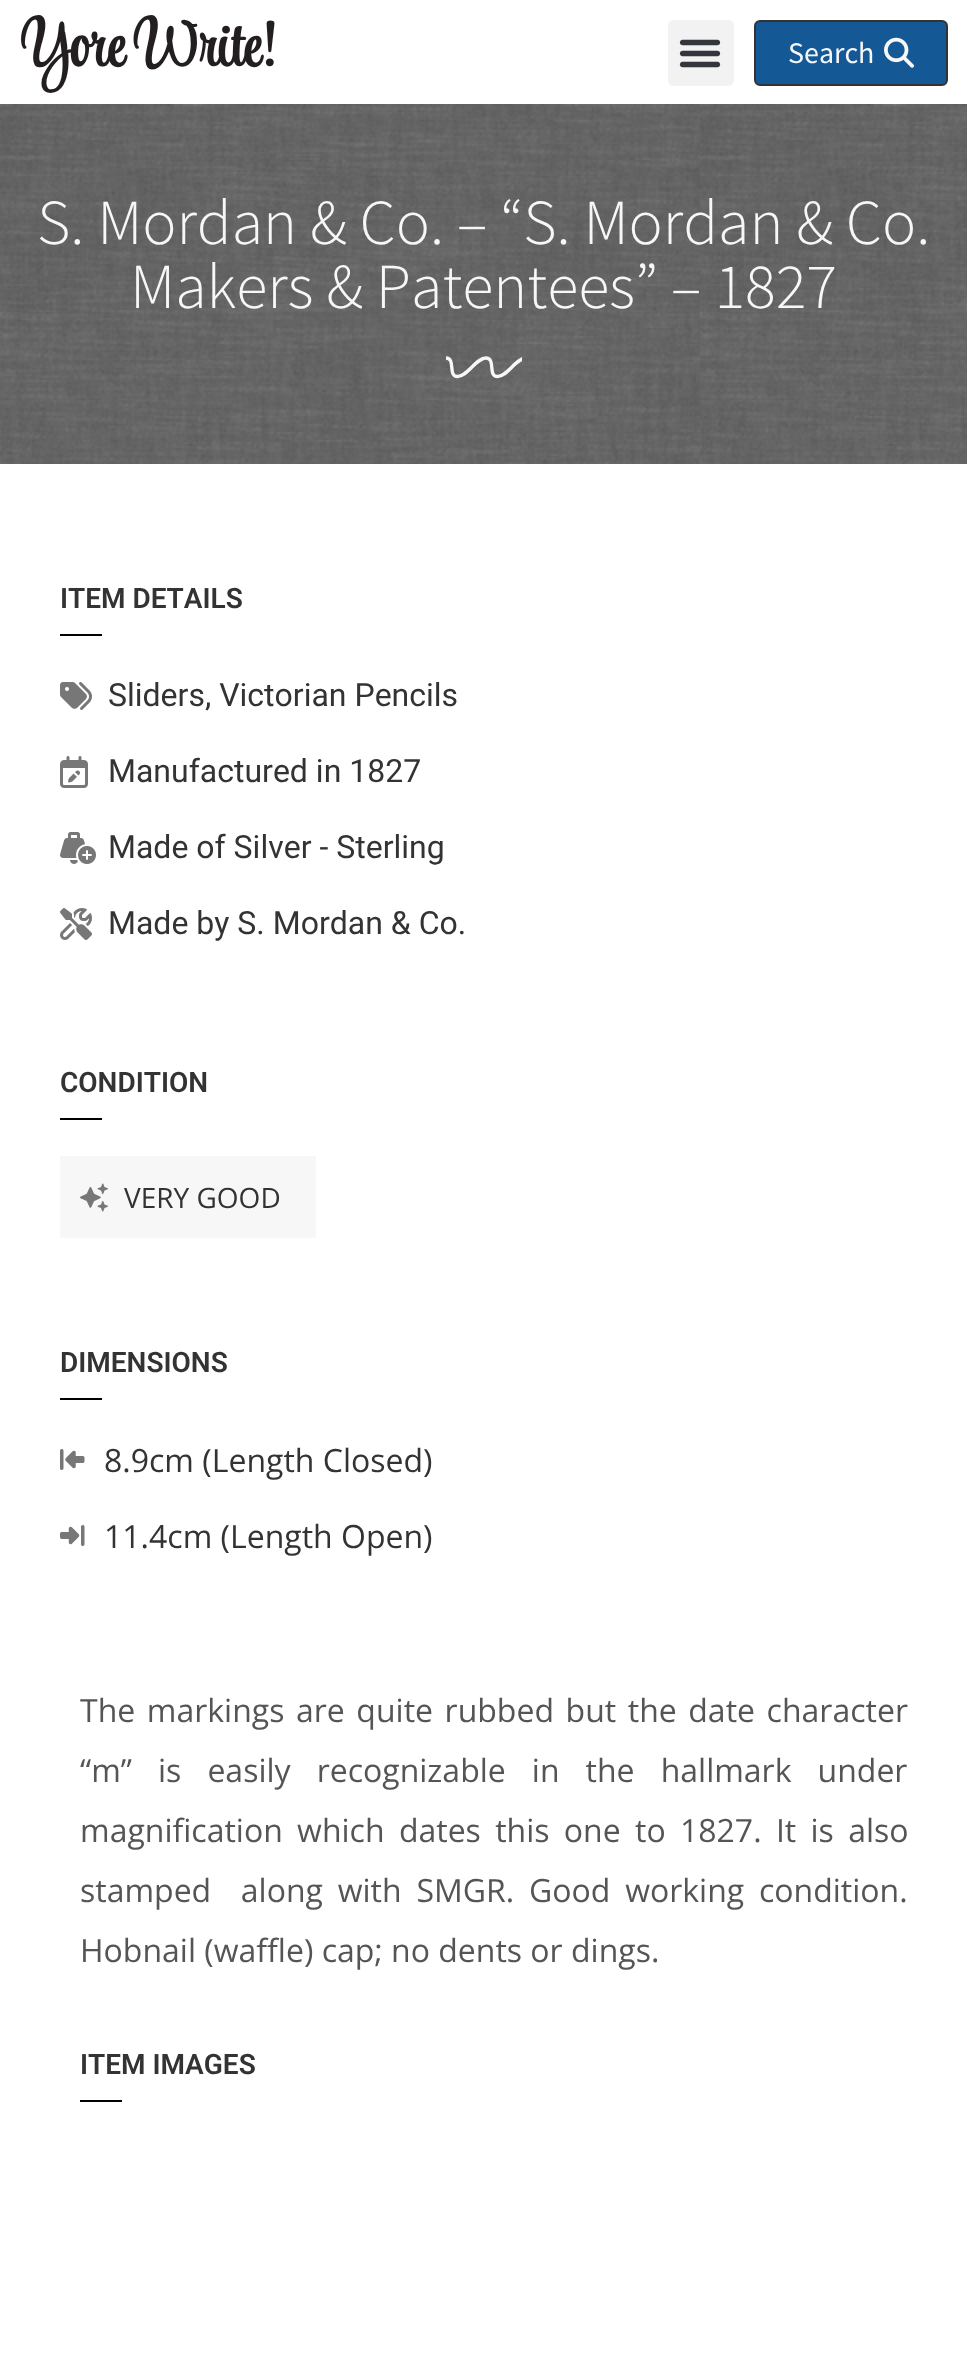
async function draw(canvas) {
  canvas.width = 967
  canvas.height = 2359
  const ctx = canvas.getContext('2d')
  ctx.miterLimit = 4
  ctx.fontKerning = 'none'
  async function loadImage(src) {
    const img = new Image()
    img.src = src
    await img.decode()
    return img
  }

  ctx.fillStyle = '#fff'
  ctx.fillRect(0, 0, 967, 2359)
  ctx.wordSpacing = '-3px'
  ctx.font = 'bold 64px Style Script'
  ctx.fillStyle = '#231f20'
  ctx.fillText('Yore Write!', 20, 66)
  ctx.fillStyle = '#f2f2f2'
  ctx.beginPath()
  ctx.roundRect(668, 20, 66, 66, 6)
  ctx.fill()
  ctx.drawImage(await loadImage('image0.png'), 679, 39, 42, 29)
  ctx.fillStyle = '#155896'
  ctx.beginPath()
  ctx.roundRect(755, 21, 192, 64, 5)
  ctx.fill()
  ctx.strokeStyle = '#333'
  ctx.lineWidth = 2
  ctx.stroke()
  ctx.wordSpacing = '0px'
  ctx.font = '30px Source Sans Pro'
  ctx.fillStyle = '#f7f7f7'
  ctx.fillText('Search', 788, 63)
  ctx.drawImage(await loadImage('image1.png'), 884, 37, 30, 31)
  ctx.drawImage(await loadImage('image2.png'), 0, 104, 967, 360)
  ctx.font = '300 64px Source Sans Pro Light'
  ctx.fillText('S. Mordan & Co. – “S. Mordan & Co.', 37, 244)
  ctx.fillText('Makers & Patentees” – 1827', 130, 308)
  ctx.drawImage(await loadImage('image3.png'), 446, 356, 76, 23)
  ctx.font = '600 28px Roboto'
  ctx.fillStyle = '#333'
  ctx.fillText('ITEM DETAILS', 60, 608)
  ctx.fillStyle = '#000'
  ctx.fillRect(60, 634, 42, 2)
  ctx.drawImage(await loadImage('image4.png'), 60, 682, 32, 28)
  ctx.font = '32px Roboto'
  ctx.fillStyle = '#333'
  ctx.fillText('Sliders, Victorian Pencils', 108, 706)
  ctx.drawImage(await loadImage('image5.png'), 60, 756, 28, 32)
  ctx.fillText('Manufactured in 1827', 108, 782)
  ctx.drawImage(await loadImage('image6.png'), 60, 832, 36, 32)
  ctx.fillText('Made of Silver - Sterling', 108, 858)
  ctx.drawImage(await loadImage('image7.png'), 60, 908, 32, 32)
  ctx.fillText('Made by S. Mordan & Co.', 108, 934)
  ctx.font = '600 28px Roboto'
  ctx.fillText('CONDITION', 60, 1092)
  ctx.fillStyle = '#000'
  ctx.fillRect(60, 1118, 42, 2)
  ctx.fillStyle = '#f7f7f7'
  ctx.fillRect(60, 1156, 256, 82)
  ctx.drawImage(await loadImage('image8.png'), 80, 1183, 28, 29)
  ctx.font = '28px Open Sans'
  ctx.fillStyle = '#333'
  ctx.fillText('VERY GOOD', 124, 1208)
  ctx.font = '600 28px Roboto'
  ctx.fillText('DIMENSIONS', 60, 1372)
  ctx.fillStyle = '#000'
  ctx.fillRect(60, 1398, 42, 2)
  ctx.drawImage(await loadImage('image9.png'), 60, 1449, 25, 21)
  ctx.font = '32px Open Sans'
  ctx.fillStyle = '#333'
  ctx.fillText('8.9cm (Length Closed)', 104, 1472)
  ctx.drawImage(await loadImage('image10.png'), 60, 1525, 25, 21)
  ctx.fillText('11.4cm (Length Open)', 104, 1548)
  ctx.wordSpacing = '3.25px'
  ctx.fillStyle = '#555'
  ctx.fillText('The markings are quite rubbed but the date character', 80, 1722)
  ctx.wordSpacing = '17.75px'
  ctx.fillText('“m” is easily recognizable in the hallmark under', 80, 1782)
  ctx.wordSpacing = '6px'
  ctx.fillText('magnification which dates this one to 1827. It is also', 80, 1842)
  ctx.wordSpacing = '6.5px'
  ctx.fillText('stamped  along with SMGR. Good working condition.', 80, 1902)
  ctx.wordSpacing = '0px'
  ctx.fillText('Hobnail (waffle) cap; no dents or dings.', 80, 1962)
  ctx.font = '600 28px Roboto'
  ctx.fillStyle = '#333'
  ctx.fillText('ITEM IMAGES', 80, 2074)
  ctx.fillStyle = '#000'
  ctx.fillRect(80, 2100, 42, 2)
}

draw(document.querySelector('canvas'))
